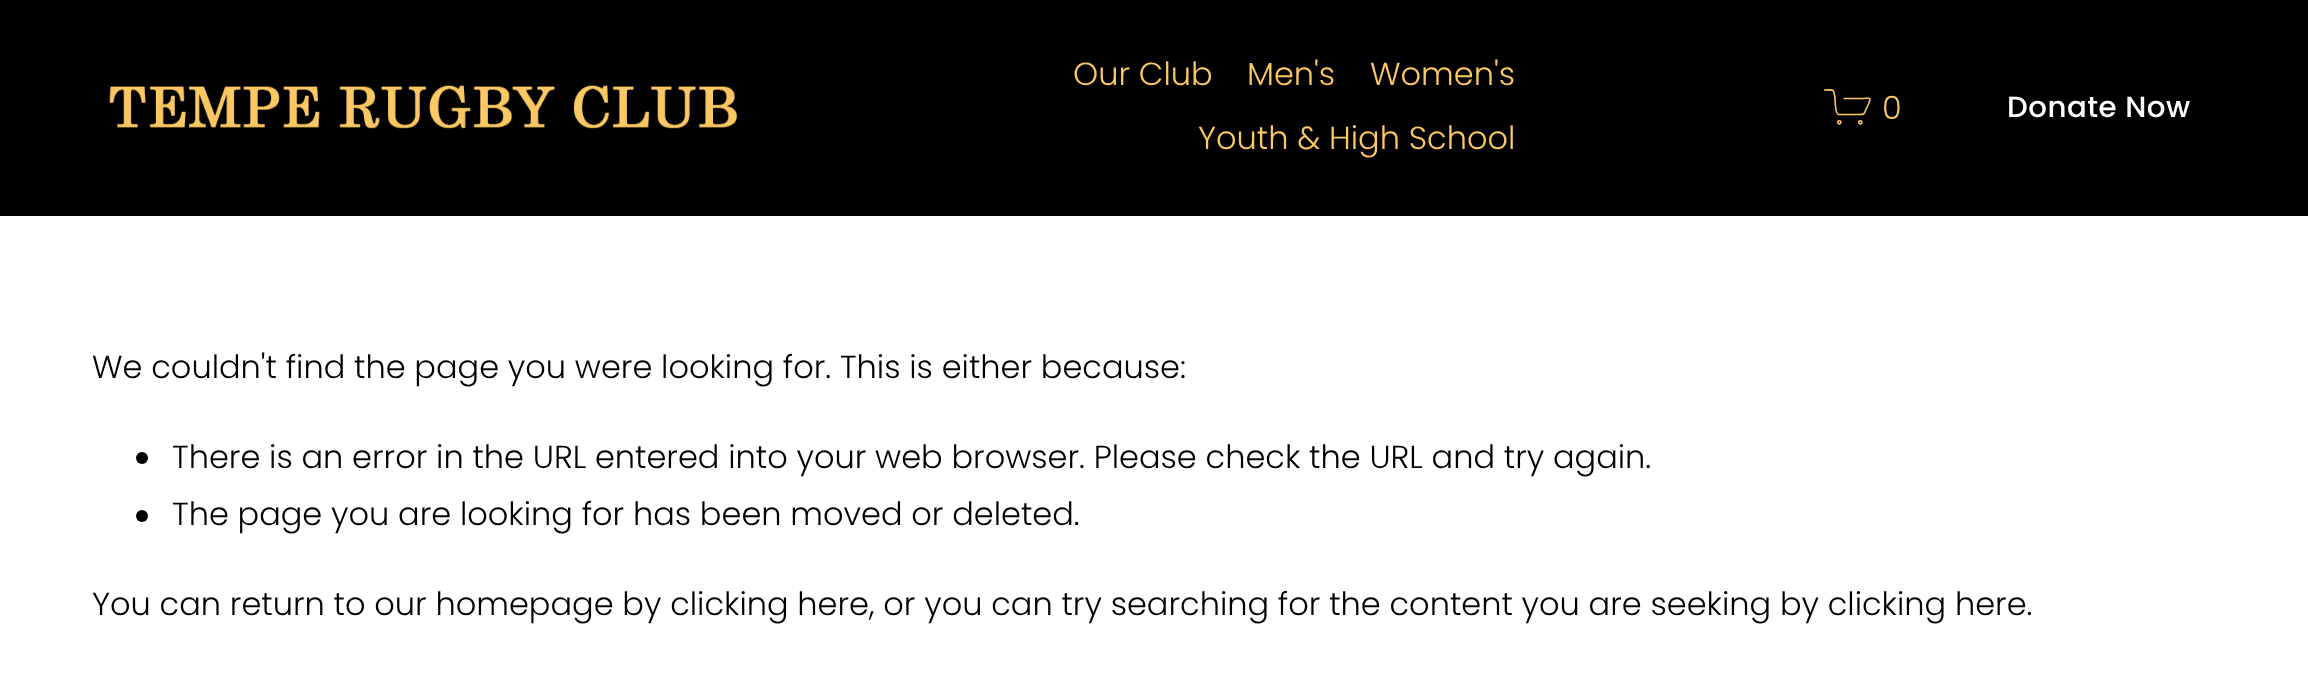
async function draw(canvas) {
  canvas.width = 2308
  canvas.height = 697
  const ctx = canvas.getContext('2d')
  ctx.miterLimit = 4
  ctx.fontKerning = 'normal'
  async function loadImage(src) {
    const img = new Image()
    img.src = src
    await img.decode()
    return img
  }

  ctx.fillStyle = '#fff'
  ctx.fillRect(0, 0, 2308, 697)
  ctx.fillStyle = '#000'
  ctx.fillRect(0, 0, 2308, 216)
  ctx.drawImage(await loadImage('image0.png'), 109, 85, 628, 44)
  ctx.font = '300 32px Poppins'
  ctx.fillStyle = '#fcc863'
  ctx.fillText('Our Club', 1073, 85)
  ctx.fillText('Men\'s', 1247, 85)
  ctx.fillText('Women\'s', 1370, 85)
  ctx.fillText('Youth & High School', 1198, 149)
  ctx.beginPath()
  ctx.arc(1860.3, 122.3, 1.6, 0, 2 * Math.PI)
  ctx.strokeStyle = '#fcc863'
  ctx.lineWidth = 1.6
  ctx.stroke()
  ctx.beginPath()
  ctx.arc(1839.3, 122.3, 1.6, 0, 2 * Math.PI)
  ctx.stroke()
  ctx.beginPath()
  ctx.moveTo(1824, 90)
  ctx.bezierCurveTo(1834.5, 90, 1833.5, 88, 1835, 98.5)
  ctx.bezierCurveTo(1835, 101, 1835.5, 114, 1838.5, 114.5)
  ctx.lineTo(1858.5, 114.5)
  ctx.bezierCurveTo(1863.5, 114.5, 1864, 115, 1865.5, 110.5)
  ctx.lineTo(1868.5, 104)
  ctx.bezierCurveTo(1871.5, 96, 1870.5, 98.5, 1860.5, 98.5)
  ctx.lineTo(1843.5, 98.5)
  ctx.stroke()
  ctx.fillText('0', 1882, 119)
  ctx.letterSpacing = '0.5px'
  ctx.font = '500 29.25px Poppins'
  ctx.fillStyle = '#fff'
  ctx.fillText('Donate Now', 2007, 117)
  ctx.letterSpacing = '0px'
  ctx.font = '300 32px Poppins'
  ctx.fillStyle = '#000'
  ctx.fillText('We couldn\'t find the page you were looking for. This is either because:', 92, 378)
  ctx.beginPath()
  ctx.arc(142, 458, 6, 0, 2 * Math.PI)
  ctx.fill()
  ctx.fillText('There is an error in the URL entered into your web browser. Please check the URL and try again.', 172, 468)
  ctx.beginPath()
  ctx.arc(142, 516, 6, 0, 2 * Math.PI)
  ctx.fill()
  ctx.fillText('The page you are looking for has been moved or deleted.', 172, 525)
  ctx.fillText('You can return to our homepage by clicking here, or you can try searching for the content you are seeking by clicking here.', 92, 615)
}

draw(document.querySelector('canvas'))
